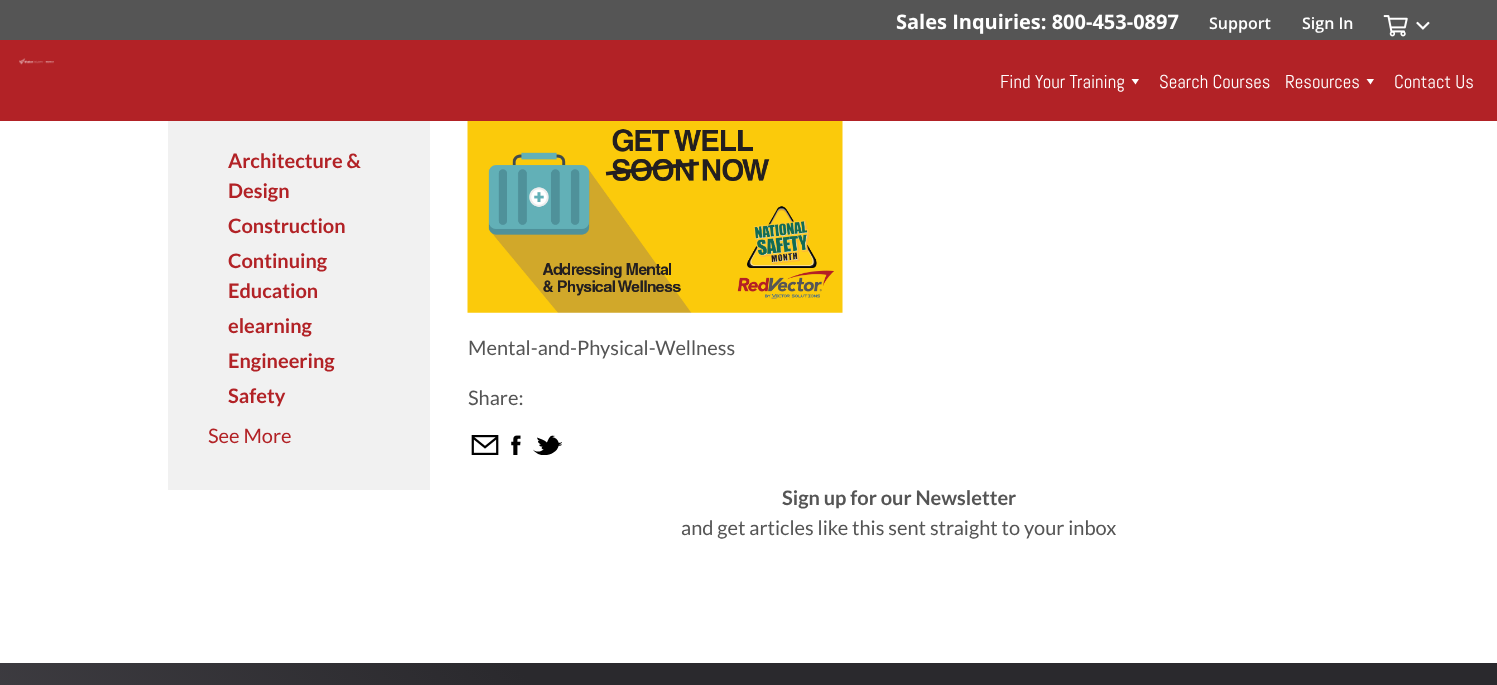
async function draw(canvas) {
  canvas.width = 1497
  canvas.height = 685
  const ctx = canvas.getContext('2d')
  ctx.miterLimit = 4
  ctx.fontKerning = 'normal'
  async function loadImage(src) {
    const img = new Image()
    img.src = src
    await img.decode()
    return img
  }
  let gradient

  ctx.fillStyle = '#fff'
  ctx.fillRect(0, 0, 1497, 685)
  ctx.fillStyle = '#555'
  ctx.fillRect(0, 0, 1497, 40)
  ctx.font = 'bold 20px Open Sans'
  ctx.fillStyle = '#fff'
  ctx.fillText('Sales Inquiries: 800-453-0897', 896, 29)
  ctx.font = '600 16px Open Sans'
  ctx.fillText('Support', 1209, 29)
  ctx.fillText('Sign In', 1302, 29)
  ctx.drawImage(await loadImage('image0.png'), 1383, 15, 25, 22)
  ctx.drawImage(await loadImage('image1.png'), 1416, 21, 14, 9)
  ctx.fillStyle = '#b22226'
  ctx.fillRect(0, 40, 1497, 81)
  ctx.drawImage(await loadImage('image2.png'), 19, 58, 35, 7)
  ctx.font = '18.75px Abel'
  ctx.fillStyle = '#fff'
  ctx.fillText('Find Your Training', 1000, 88)
  ctx.beginPath()
  ctx.moveTo(1139, 79)
  ctx.lineTo(1135.5, 84.5)
  ctx.lineTo(1131.5, 79)
  ctx.closePath()
  ctx.fill()
  ctx.fillText('Search Courses', 1159, 88)
  ctx.fillText('Resources', 1285, 88)
  ctx.beginPath()
  ctx.moveTo(1374, 79)
  ctx.lineTo(1370.5, 84.5)
  ctx.lineTo(1366.5, 79)
  ctx.closePath()
  ctx.fill()
  ctx.fillText('Contact Us', 1394, 88)
  ctx.fillStyle = '#f1f1f1'
  ctx.fillRect(168, 121, 262, 369)
  ctx.font = 'bold 20px Lato'
  ctx.fillStyle = '#b22226'
  ctx.fillText('Architecture &', 228, 168)
  ctx.fillText('Design', 228, 198)
  ctx.fillText('Construction', 228, 233)
  ctx.fillText('Continuing', 228, 268)
  ctx.fillText('Education', 228, 298)
  ctx.fillText('elearning', 228, 333)
  ctx.fillText('Engineering', 228, 368)
  ctx.fillText('Safety', 228, 403)
  ctx.font = '20px Lato'
  ctx.fillText('See More', 208, 443)
  ctx.drawImage(await loadImage('image3.png'), 467, 121, 376, 192)
  ctx.fillStyle = '#555'
  ctx.fillText('Mental-and-Physical-Wellness', 468, 355)
  ctx.fillText('Share:', 468, 405)
  ctx.drawImage(await loadImage('image4.png'), 471, 435, 28, 20)
  ctx.drawImage(await loadImage('image5.png'), 511, 435, 10, 20)
  ctx.drawImage(await loadImage('image6.png'), 533, 435, 29, 20)
  ctx.font = 'bold 20px Lato'
  ctx.fillText('Sign up for our Newsletter', 782, 505)
  ctx.font = '20px Lato'
  ctx.fillText('and get articles like this sent straight to your inbox', 681, 535)
  gradient = ctx.createLinearGradient(131, 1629, 1366, 517)
  gradient.addColorStop(0, '#555359')
  gradient.addColorStop(0.56, '#2a292d')
  ctx.fillStyle = gradient
  ctx.fillRect(0, 663, 1497, 22)
}

draw(document.querySelector('canvas'))
